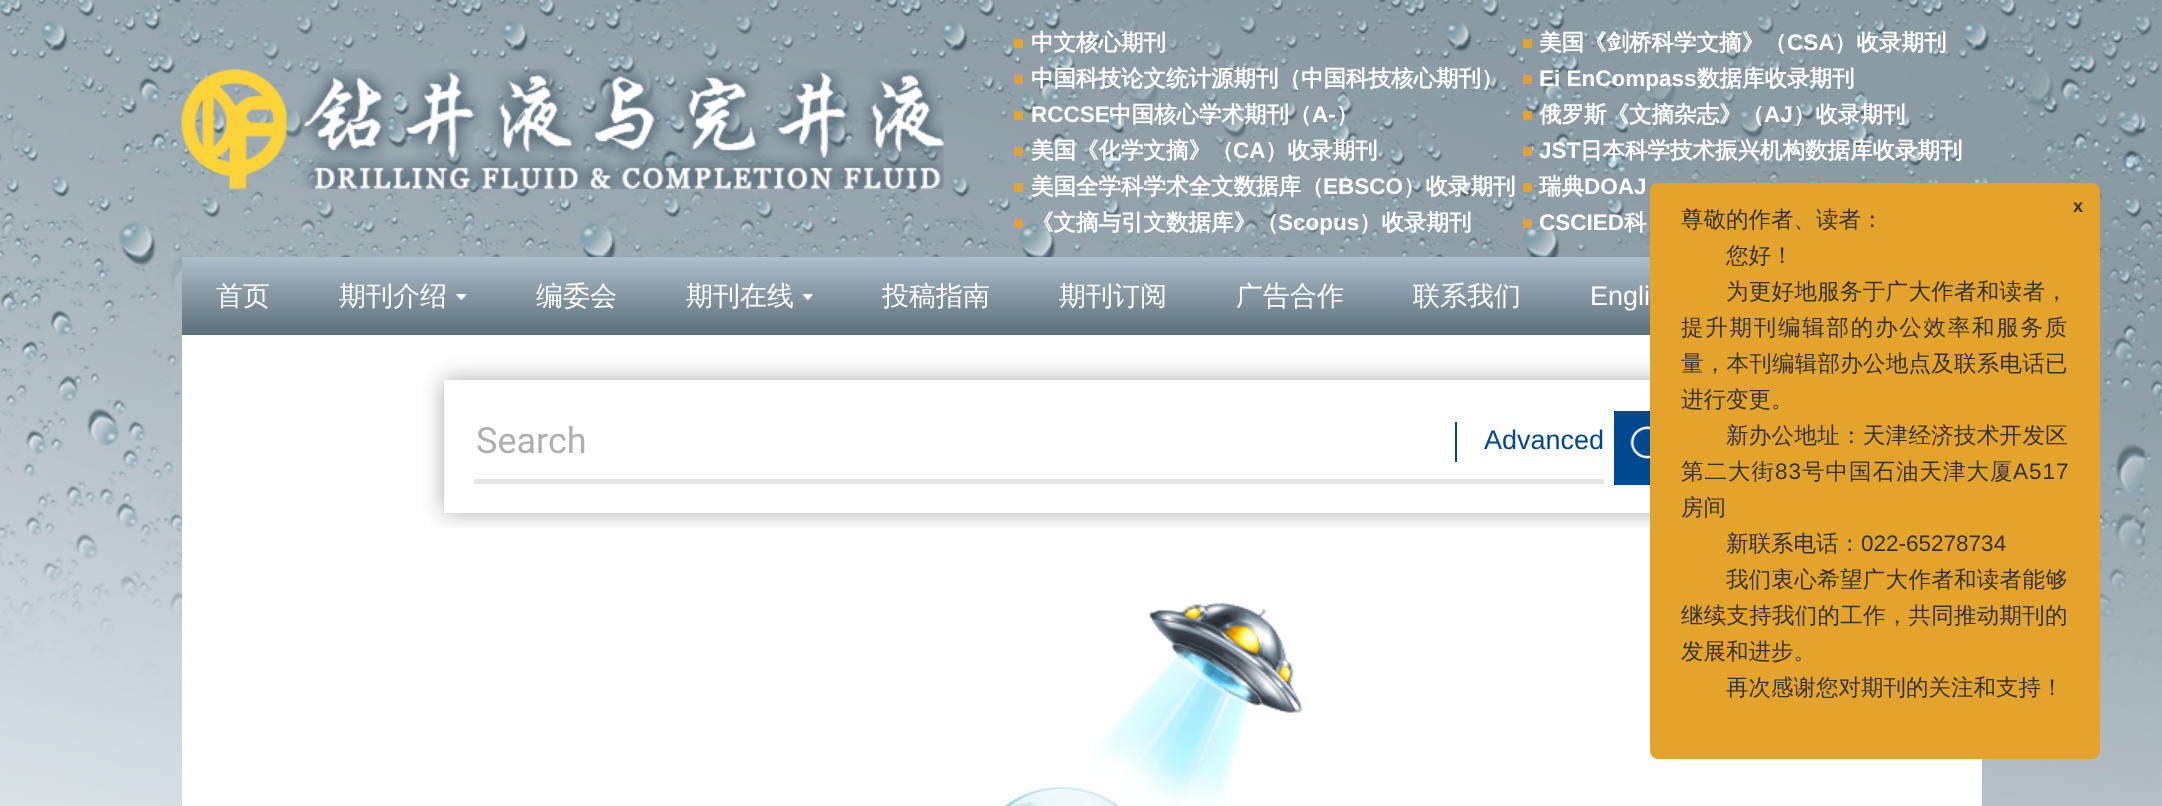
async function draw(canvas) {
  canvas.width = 2162
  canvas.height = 806
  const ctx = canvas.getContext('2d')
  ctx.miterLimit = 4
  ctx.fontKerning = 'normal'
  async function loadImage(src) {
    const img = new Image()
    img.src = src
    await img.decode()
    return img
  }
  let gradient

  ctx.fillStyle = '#fff'
  ctx.fillRect(0, 0, 2162, 806)
  ctx.drawImage(await loadImage('image0.png'), 0, 0, 2162, 806)
  ctx.drawImage(await loadImage('image1.png'), 181, 69, 763, 120)
  ctx.fillStyle = '#e4a42c'
  ctx.fillRect(1014, 39, 9, 9)
  ctx.font = 'bold 22.5px WenQuanYi Zen Hei'
  ctx.fillStyle = '#fff'
  ctx.fillText('中文核心期刊', 1031, 50)
  ctx.fillStyle = '#e4a42c'
  ctx.fillRect(1014, 75, 9, 9)
  ctx.fillStyle = '#fff'
  ctx.fillText('中国科技论文统计源期刊（中国科技核心期刊）', 1031, 86)
  ctx.fillStyle = '#e4a42c'
  ctx.fillRect(1014, 111, 9, 9)
  ctx.font = 'bold 22.5px Liberation Sans'
  ctx.fillStyle = '#fff'
  ctx.fillText('RCCSE', 1031, 122)
  ctx.font = 'bold 22.5px WenQuanYi Zen Hei'
  ctx.fillText('中国核心学术期刊（', 1109, 122)
  ctx.font = 'bold 22.5px Liberation Sans'
  ctx.fillText('A-', 1312, 122)
  ctx.font = 'bold 22.5px WenQuanYi Zen Hei'
  ctx.fillText('）', 1336, 122)
  ctx.fillStyle = '#e4a42c'
  ctx.fillRect(1014, 147, 9, 9)
  ctx.fillStyle = '#fff'
  ctx.fillText('美国《化学文摘》（', 1031, 158)
  ctx.font = 'bold 22.5px Liberation Sans'
  ctx.fillText('CA', 1233, 158)
  ctx.font = 'bold 22.5px WenQuanYi Zen Hei'
  ctx.fillText('）收录期刊', 1265, 158)
  ctx.fillStyle = '#e4a42c'
  ctx.fillRect(1014, 183, 9, 9)
  ctx.fillStyle = '#fff'
  ctx.fillText('美国全学科学术全文数据库（', 1031, 194)
  ctx.font = 'bold 22.5px Liberation Sans'
  ctx.fillText('EBSCO', 1323, 194)
  ctx.font = 'bold 22.5px WenQuanYi Zen Hei'
  ctx.fillText('）收录期刊', 1403, 194)
  ctx.fillStyle = '#e4a42c'
  ctx.fillRect(1014, 219, 9, 9)
  ctx.fillStyle = '#fff'
  ctx.fillText('《文摘与引文数据库》（', 1031, 230)
  ctx.font = 'bold 22.5px Liberation Sans'
  ctx.fillText('Scopus', 1278, 230)
  ctx.font = 'bold 22.5px WenQuanYi Zen Hei'
  ctx.fillText('）收录期刊', 1359, 230)
  ctx.fillStyle = '#e4a42c'
  ctx.fillRect(1523, 39, 9, 9)
  ctx.fillStyle = '#fff'
  ctx.fillText('美国《剑桥科学文摘》（', 1539, 50)
  ctx.font = 'bold 22.5px Liberation Sans'
  ctx.fillText('CSA', 1787, 50)
  ctx.font = 'bold 22.5px WenQuanYi Zen Hei'
  ctx.fillText('）收录期刊', 1834, 50)
  ctx.fillStyle = '#e4a42c'
  ctx.fillRect(1523, 75, 9, 9)
  ctx.font = 'bold 22.5px Liberation Sans'
  ctx.fillStyle = '#fff'
  ctx.fillText('Ei EnCompass', 1539, 86)
  ctx.font = 'bold 22.5px WenQuanYi Zen Hei'
  ctx.fillText('数据库收录期刊', 1697, 86)
  ctx.fillStyle = '#e4a42c'
  ctx.fillRect(1523, 111, 9, 9)
  ctx.fillStyle = '#fff'
  ctx.fillText('俄罗斯《文摘杂志》（', 1539, 122)
  ctx.font = 'bold 22.5px Liberation Sans'
  ctx.fillText('AJ', 1764, 122)
  ctx.font = 'bold 22.5px WenQuanYi Zen Hei'
  ctx.fillText('）收录期刊', 1793, 122)
  ctx.fillStyle = '#e4a42c'
  ctx.fillRect(1523, 147, 9, 9)
  ctx.font = 'bold 22.5px Liberation Sans'
  ctx.fillStyle = '#fff'
  ctx.fillText('JST', 1539, 158)
  ctx.font = 'bold 22.5px WenQuanYi Zen Hei'
  ctx.fillText('日本科学技术振兴机构数据库收录期刊', 1580, 158)
  ctx.fillStyle = '#e4a42c'
  ctx.fillRect(1523, 183, 9, 9)
  ctx.fillStyle = '#fff'
  ctx.fillText('瑞典', 1539, 194)
  ctx.font = 'bold 22.5px Liberation Sans'
  ctx.fillText('DOAJ', 1584, 194)
  ctx.fillStyle = '#e4a42c'
  ctx.fillRect(1523, 219, 9, 9)
  ctx.fillStyle = '#fff'
  ctx.fillText('CSCIED', 1539, 230)
  ctx.font = 'bold 22.5px WenQuanYi Zen Hei'
  ctx.fillText('科', 1624, 230)
  gradient = ctx.createLinearGradient(1082, 256, 1082, 335)
  gradient.addColorStop(0, '#afbfcd')
  gradient.addColorStop(1, '#5a6f7a')
  ctx.fillStyle = gradient
  ctx.fillRect(182, 257, 1468, 78)
  ctx.font = '500 27px WenQuanYi Zen Hei'
  ctx.fillStyle = '#fff'
  ctx.fillText('首页', 216, 305)
  ctx.fillText('期刊介绍', 339, 305)
  ctx.drawImage(await loadImage('image2.png'), 456, 294, 11, 6)
  ctx.fillText('编委会', 536, 305)
  ctx.fillText('期刊在线', 686, 305)
  ctx.drawImage(await loadImage('image3.png'), 802, 294, 11, 6)
  ctx.fillText('投稿指南', 882, 305)
  ctx.fillText('期刊订阅', 1059, 305)
  ctx.fillText('广告合作', 1236, 305)
  ctx.fillText('联系我们', 1413, 305)
  ctx.font = '27px Liberation Sans'
  ctx.fillText('Engli', 1590, 305)
  ctx.fillRect(182, 335, 1468, 193)
  ctx.save()
  ctx.beginPath()
  ctx.moveTo(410, 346)
  ctx.lineTo(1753, 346)
  ctx.lineTo(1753, 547)
  ctx.lineTo(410, 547)
  ctx.closePath()
  ctx.moveTo(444, 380)
  ctx.lineTo(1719, 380)
  ctx.lineTo(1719, 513)
  ctx.lineTo(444, 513)
  ctx.closePath()
  ctx.clip('evenodd')
  ctx.fillStyle = '#aaa'
  ctx.filter = 'blur(11px)'
  ctx.beginPath()
  ctx.rect(444, 380, 1275, 133)
  ctx.fill()
  ctx.filter = 'none'
  ctx.restore()
  ctx.fillStyle = '#e4e4e4'
  ctx.fillRect(474, 479, 1130, 5)
  ctx.fillStyle = '#00488f'
  ctx.fillRect(1455, 422, 2, 40)
  ctx.font = '36px Roboto'
  ctx.fillStyle = '#afafaf'
  ctx.fillText('Search', 476, 453)
  ctx.font = '27px Liberation Sans'
  ctx.fillStyle = '#00488f'
  ctx.fillText('Advanced', 1484, 449)
  ctx.fillRect(1614, 411, 36, 74)
  ctx.drawImage(await loadImage('image4.png'), 1630, 426, 20, 33)
  ctx.fillStyle = '#fff'
  ctx.fillRect(182, 528, 1800, 278)
  ctx.drawImage(await loadImage('image5.png'), 1004, 787, 116, 19)
  ctx.drawImage(await loadImage('image6.png'), 1088, 602, 215, 204)
  ctx.fillStyle = '#e4a42c'
  ctx.beginPath()
  ctx.roundRect(1651, 184, 448, 574, 7)
  ctx.fill()
  ctx.strokeStyle = '#e4a42c'
  ctx.lineWidth = 2
  ctx.stroke()
  ctx.font = 'bold 18px Liberation Sans'
  ctx.fillStyle = '#333'
  ctx.fillText('x', 2073, 212)
  ctx.font = '500 22.5px WenQuanYi Zen Hei'
  ctx.fillText('尊敬的作者、读者：', 1681, 227)
  ctx.fillText('您好！', 1726, 263)
  ctx.letterSpacing = '0.3px'
  ctx.fillText('为更好地服务于广大作者和读者，', 1726, 299)
  ctx.letterSpacing = '1.75px'
  ctx.fillText('提升期刊编辑部的办公效率和服务质', 1681, 335)
  ctx.letterSpacing = '0.25px'
  ctx.fillText('量，本刊编辑部办公地点及联系电话已', 1681, 371)
  ctx.letterSpacing = '0px'
  ctx.fillText('进行变更。', 1681, 407)
  ctx.letterSpacing = '0.3px'
  ctx.fillText('新办公地址：天津经济技术开发区', 1726, 443)
  ctx.letterSpacing = '1px'
  ctx.fillText('第二大街', 1681, 479)
  ctx.font = '22.5px Liberation Sans'
  ctx.fillText('83', 1775, 479)
  ctx.font = '500 22.5px WenQuanYi Zen Hei'
  ctx.fillText('号中国石油天津大厦', 1802, 479)
  ctx.font = '22.5px Liberation Sans'
  ctx.fillText('A517', 2013, 479)
  ctx.letterSpacing = '0px'
  ctx.font = '500 22.5px WenQuanYi Zen Hei'
  ctx.fillText('房间', 1681, 515)
  ctx.fillText('新联系电话：', 1726, 551)
  ctx.font = '22.5px Liberation Sans'
  ctx.fillText('022-65278734', 1861, 551)
  ctx.letterSpacing = '0.3px'
  ctx.font = '500 22.5px WenQuanYi Zen Hei'
  ctx.fillText('我们衷心希望广大作者和读者能够', 1726, 587)
  ctx.letterSpacing = '0.25px'
  ctx.fillText('继续支持我们的工作，共同推动期刊的', 1681, 623)
  ctx.letterSpacing = '0px'
  ctx.fillText('发展和进步。', 1681, 659)
  ctx.fillText('再次感谢您对期刊的关注和支持！', 1726, 695)
}

draw(document.querySelector('canvas'))
